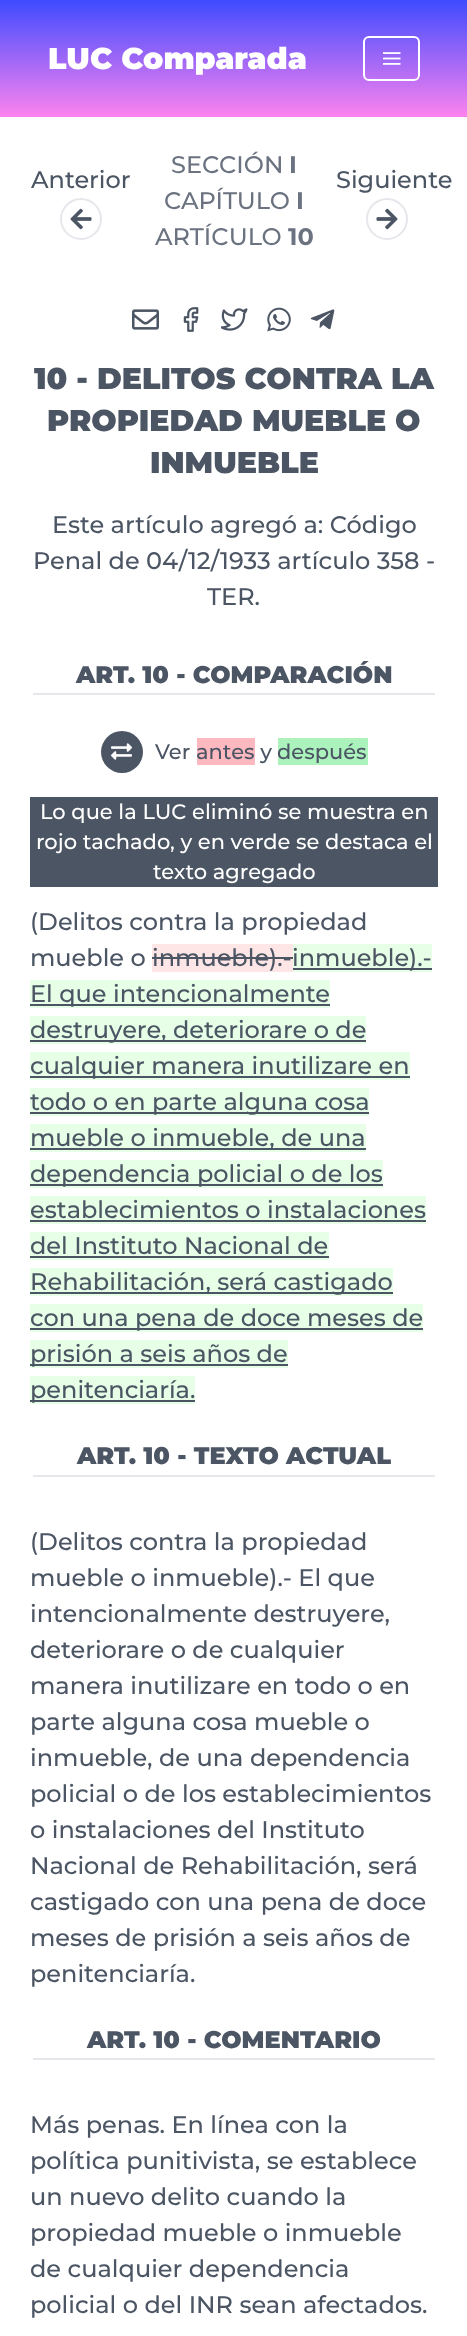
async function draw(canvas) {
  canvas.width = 467
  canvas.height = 2336
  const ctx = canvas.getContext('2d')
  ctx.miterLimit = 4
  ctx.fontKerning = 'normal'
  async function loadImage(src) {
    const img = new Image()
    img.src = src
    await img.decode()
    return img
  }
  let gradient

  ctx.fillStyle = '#fff'
  ctx.fillRect(0, 0, 467, 2336)
  gradient = ctx.createLinearGradient(234, 0, 234, 117)
  gradient.addColorStop(0, '#3f4bff')
  gradient.addColorStop(1, '#fc83ee')
  ctx.fillStyle = gradient
  ctx.fillRect(0, 0, 467, 117)
  ctx.font = '900 30px Montserrat'
  ctx.fillStyle = '#fff'
  ctx.fillText('LUC Comparada', 48, 69)
  ctx.beginPath()
  ctx.roundRect(364, 37, 55, 43, 5)
  ctx.strokeStyle = '#fff'
  ctx.lineWidth = 2
  ctx.stroke()
  ctx.drawImage(await loadImage('image0.png'), 383, 52, 18, 13)
  ctx.font = '500 24px Montserrat'
  ctx.fillStyle = '#4b5563'
  ctx.fillText('Anterior', 31, 188)
  ctx.beginPath()
  ctx.arc(81, 219, 20, 0, 2 * Math.PI)
  ctx.strokeStyle = '#e5e7eb'
  ctx.stroke()
  ctx.drawImage(await loadImage('image1.png'), 70, 208, 22, 22)
  ctx.fillStyle = '#6b7280'
  ctx.fillText('SECCIÓN', 171, 173)
  ctx.font = 'bold 24px Montserrat'
  ctx.fillText('I', 289, 173)
  ctx.font = '500 24px Montserrat'
  ctx.fillText('CAPÍTULO', 164, 209)
  ctx.font = 'bold 24px Montserrat'
  ctx.fillText('I', 296, 209)
  ctx.font = '500 24px Montserrat'
  ctx.fillText('ARTÍCULO', 155, 245)
  ctx.font = 'bold 24px Montserrat'
  ctx.fillText('10', 288, 245)
  ctx.font = '500 24px Montserrat'
  ctx.fillStyle = '#4b5563'
  ctx.fillText('Siguiente', 336, 188)
  ctx.beginPath()
  ctx.arc(387, 219, 20, 0, 2 * Math.PI)
  ctx.stroke()
  ctx.drawImage(await loadImage('image2.png'), 376, 208, 22, 22)
  ctx.drawImage(await loadImage('image3.png'), 132, 309, 27, 21)
  ctx.drawImage(await loadImage('image4.png'), 183, 307, 16, 25)
  ctx.drawImage(await loadImage('image5.png'), 221, 308, 27, 23)
  ctx.drawImage(await loadImage('image6.png'), 267, 307, 24, 25)
  ctx.drawImage(await loadImage('image7.png'), 310, 309, 25, 21)
  ctx.font = '900 30px Montserrat'
  ctx.fillText('10 - DELITOS CONTRA LA', 34, 389)
  ctx.fillText('PROPIEDAD MUEBLE O', 47, 431)
  ctx.fillText('INMUEBLE', 150, 473)
  ctx.font = '500 24px Montserrat'
  ctx.fillText('Este artículo agregó a: Código', 52, 533)
  ctx.fillText('Penal de 04/12/1933 artículo 358 -', 33, 569)
  ctx.fillText('TER.', 207, 605)
  ctx.fillStyle = '#e5e7eb'
  ctx.fillRect(33, 693, 402, 2)
  ctx.font = '900 24px Montserrat'
  ctx.fillStyle = '#4b5563'
  ctx.fillText('ART. 10 - COMPARACIÓN', 76, 683)
  ctx.beginPath()
  ctx.arc(122, 752, 21, 0, 2 * Math.PI)
  ctx.fill()
  ctx.drawImage(await loadImage('image8.png'), 111, 743, 21, 17)
  ctx.font = '500 21px Montserrat'
  ctx.fillText('Ver', 155, 759)
  ctx.fillStyle = '#fdb8c0'
  ctx.fillRect(197, 738, 58, 27)
  ctx.fillStyle = '#4b5563'
  ctx.fillText('antes y', 196, 759)
  ctx.fillStyle = '#acf2bd'
  ctx.fillRect(278, 738, 90, 27)
  ctx.fillStyle = '#4b5563'
  ctx.fillText('después', 277, 759)
  ctx.fillRect(30, 797, 408, 90)
  ctx.fillStyle = '#fff'
  ctx.fillText('Lo que la LUC eliminó se muestra en', 40, 819)
  ctx.fillText('rojo tachado, y en verde se destaca el', 36, 849)
  ctx.fillText('texto agregado', 153, 879)
  ctx.font = '500 24px Montserrat'
  ctx.fillStyle = '#4b5563'
  ctx.fillText('(Delitos contra la propiedad', 30, 930)
  ctx.fillText('mueble o', 30, 966)
  ctx.fillStyle = '#ffe6e6'
  ctx.fillRect(152, 944, 141, 28)
  ctx.fillStyle = '#4b5563'
  ctx.fillText('inmueble).-', 152, 966)
  ctx.fillRect(152, 957, 141, 2)
  ctx.fillStyle = '#e6ffe6'
  ctx.fillRect(293, 944, 139, 28)
  ctx.fillStyle = '#4b5563'
  ctx.fillRect(293, 968, 139, 2)
  ctx.fillText('inmueble).-', 292, 966)
  ctx.fillStyle = '#e6ffe6'
  ctx.fillRect(30, 980, 300, 28)
  ctx.fillStyle = '#4b5563'
  ctx.fillRect(30, 1004, 300, 2)
  ctx.fillText('El que intencionalmente', 30, 1002)
  ctx.fillStyle = '#e6ffe6'
  ctx.fillRect(30, 1016, 336, 28)
  ctx.fillStyle = '#4b5563'
  ctx.fillRect(30, 1040, 336, 2)
  ctx.fillText('destruyere, deteriorare o de', 30, 1038)
  ctx.fillStyle = '#e6ffe6'
  ctx.fillRect(30, 1052, 380, 28)
  ctx.fillStyle = '#4b5563'
  ctx.fillRect(30, 1076, 380, 2)
  ctx.fillText('cualquier manera inutilizare en', 30, 1074)
  ctx.fillStyle = '#e6ffe6'
  ctx.fillRect(30, 1088, 339, 28)
  ctx.fillStyle = '#4b5563'
  ctx.fillRect(30, 1112, 339, 2)
  ctx.fillText('todo o en parte alguna cosa', 30, 1110)
  ctx.fillStyle = '#e6ffe6'
  ctx.fillRect(30, 1124, 336, 28)
  ctx.fillStyle = '#4b5563'
  ctx.fillRect(30, 1148, 336, 2)
  ctx.fillText('mueble o inmueble, de una', 30, 1146)
  ctx.fillStyle = '#e6ffe6'
  ctx.fillRect(30, 1160, 353, 28)
  ctx.fillStyle = '#4b5563'
  ctx.fillRect(30, 1184, 353, 2)
  ctx.fillText('dependencia policial o de los', 30, 1182)
  ctx.fillStyle = '#e6ffe6'
  ctx.fillRect(30, 1196, 396, 28)
  ctx.fillStyle = '#4b5563'
  ctx.fillText('establecimientos o instalaciones', 30, 1218)
  ctx.fillRect(30, 1220, 396, 2)
  ctx.fillStyle = '#e6ffe6'
  ctx.fillRect(30, 1232, 299, 28)
  ctx.fillStyle = '#4b5563'
  ctx.fillText('del Instituto Nacional de', 30, 1254)
  ctx.fillRect(30, 1256, 299, 2)
  ctx.fillStyle = '#e6ffe6'
  ctx.fillRect(30, 1268, 363, 28)
  ctx.fillStyle = '#4b5563'
  ctx.fillRect(30, 1292, 363, 2)
  ctx.fillText('Rehabilitación, será castigado', 30, 1290)
  ctx.fillStyle = '#e6ffe6'
  ctx.fillRect(30, 1304, 393, 28)
  ctx.fillStyle = '#4b5563'
  ctx.fillRect(30, 1328, 393, 2)
  ctx.fillText('con una pena de doce meses de', 30, 1326)
  ctx.fillStyle = '#e6ffe6'
  ctx.fillRect(30, 1340, 258, 28)
  ctx.fillStyle = '#4b5563'
  ctx.fillRect(30, 1364, 258, 2)
  ctx.fillText('prisión a seis años de', 30, 1362)
  ctx.fillStyle = '#e6ffe6'
  ctx.fillRect(30, 1376, 165, 28)
  ctx.fillStyle = '#4b5563'
  ctx.fillRect(30, 1400, 165, 2)
  ctx.fillText('penitenciaría.', 30, 1398)
  ctx.fillStyle = '#e5e7eb'
  ctx.fillRect(33, 1475, 402, 2)
  ctx.font = '900 24px Montserrat'
  ctx.fillStyle = '#4b5563'
  ctx.fillText('ART. 10 - TEXTO ACTUAL', 77, 1464)
  ctx.font = '500 24px Montserrat'
  ctx.fillText('(Delitos contra la propiedad', 30, 1550)
  ctx.fillText('mueble o inmueble).- El que', 30, 1586)
  ctx.fillText('intencionalmente destruyere,', 30, 1622)
  ctx.fillText('deteriorare o de cualquier', 30, 1658)
  ctx.fillText('manera inutilizare en todo o en', 30, 1694)
  ctx.fillText('parte alguna cosa mueble o', 30, 1730)
  ctx.fillText('inmueble, de una dependencia', 30, 1766)
  ctx.fillText('policial o de los establecimientos', 30, 1802)
  ctx.fillText('o instalaciones del Instituto', 30, 1838)
  ctx.fillText('Nacional de Rehabilitación, será', 30, 1874)
  ctx.fillText('castigado con una pena de doce', 30, 1910)
  ctx.fillText('meses de prisión a seis años de', 30, 1946)
  ctx.fillText('penitenciaría.', 30, 1982)
  ctx.fillStyle = '#e5e7eb'
  ctx.fillRect(33, 2058, 402, 2)
  ctx.font = '900 24px Montserrat'
  ctx.fillStyle = '#4b5563'
  ctx.fillText('ART. 10 - COMENTARIO', 87, 2048)
  ctx.font = '500 24px Montserrat'
  ctx.fillText('Más penas. En línea con la', 30, 2133)
  ctx.fillText('política punitivista, se establece', 30, 2169)
  ctx.fillText('un nuevo delito cuando la', 30, 2205)
  ctx.fillText('propiedad mueble o inmueble', 30, 2241)
  ctx.fillText('de cualquier dependencia', 30, 2277)
  ctx.fillText('policial o del INR sean afectados.', 30, 2313)
}

draw(document.querySelector('canvas'))
